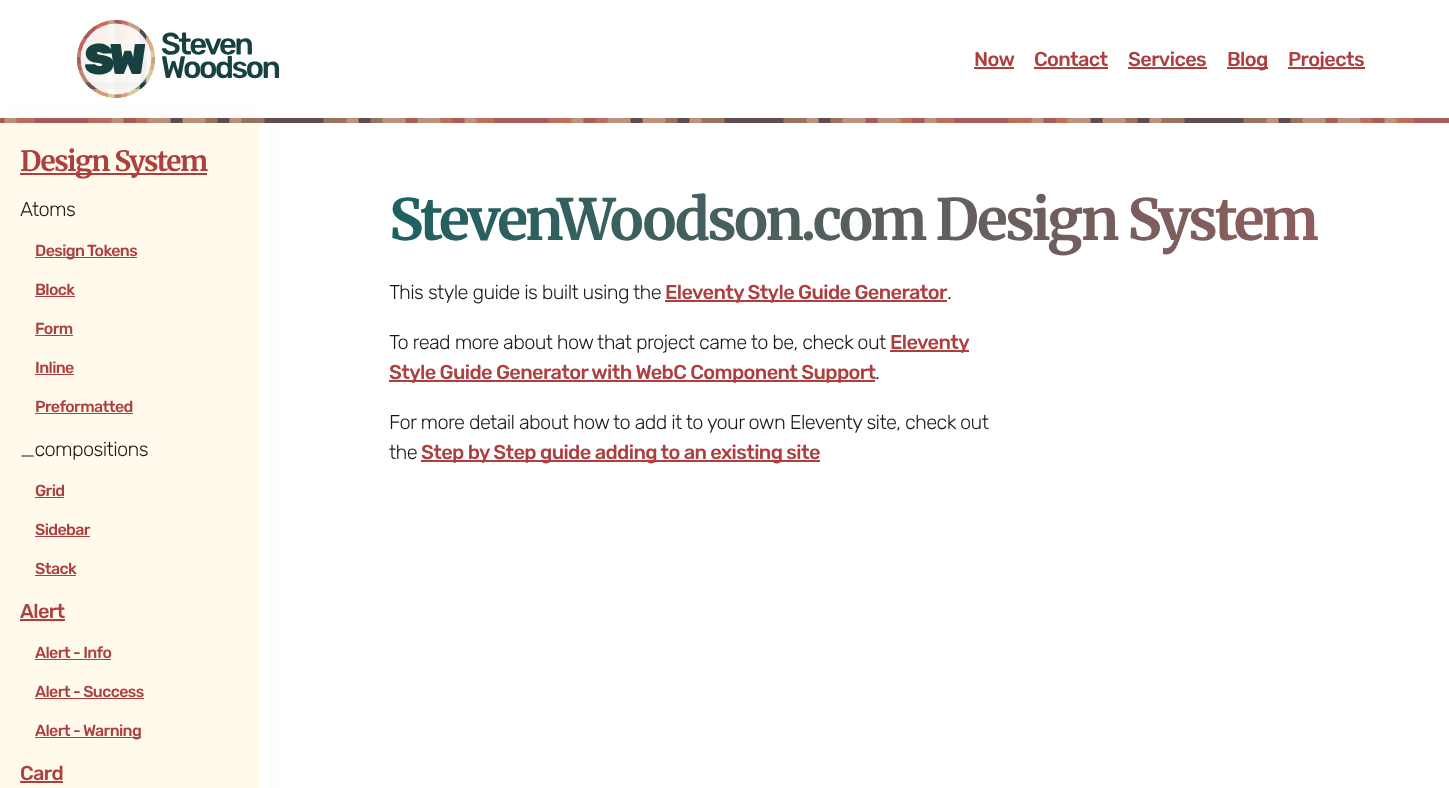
async function draw(canvas) {
  canvas.width = 1449
  canvas.height = 788
  const ctx = canvas.getContext('2d')
  ctx.miterLimit = 4
  ctx.fontKerning = 'normal'
  async function loadImage(src) {
    const img = new Image()
    img.src = src
    await img.decode()
    return img
  }
  let gradient

  ctx.fillStyle = '#fff'
  ctx.fillRect(0, 0, 1449, 788)
  ctx.drawImage(await loadImage('image0.png'), 0, 118, 1449, 5)
  ctx.drawImage(await loadImage('image1.png'), 77, 20, 203, 78)
  ctx.letterSpacing = '-0.62px'
  ctx.font = '500 20px Rubik'
  ctx.fillStyle = '#ad3f3f'
  ctx.fillText('Now', 974, 66)
  ctx.fillRect(974, 67, 40, 2)
  ctx.fillText('Contact', 1034, 66)
  ctx.fillRect(1034, 67, 74, 2)
  ctx.fillText('Services', 1128, 66)
  ctx.fillRect(1128, 67, 79, 2)
  ctx.fillRect(1227, 67, 41, 2)
  ctx.fillText('Blog', 1227, 66)
  ctx.fillRect(1288, 67, 77, 2)
  ctx.fillText('Projects', 1288, 66)
  ctx.fillStyle = '#0000000d'
  ctx.filter = 'blur(10px)'
  ctx.beginPath()
  ctx.rect(0, 123, 260, 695)
  ctx.fill()
  ctx.filter = 'none'
  ctx.fillStyle = '#fffaeb'
  ctx.fillRect(0, 123, 260, 665)
  ctx.fillStyle = '#ad3f3f'
  ctx.fillRect(20, 173, 187, 2)
  ctx.letterSpacing = '-1.4px'
  ctx.font = '300 28px Merriweather'
  ctx.fillText('Design System', 20, 171)
  ctx.letterSpacing = '-0.62px'
  ctx.font = '300 20px Rubik'
  ctx.fillStyle = '#1e1719'
  ctx.fillText('Atoms', 20, 216)
  ctx.fillStyle = '#ad3f3f'
  ctx.fillRect(35, 257, 102, 1)
  ctx.font = '500 16px Rubik'
  ctx.fillText('Design Tokens', 35, 256)
  ctx.fillText('Block', 35, 295)
  ctx.fillRect(35, 296, 40, 1)
  ctx.fillText('Form', 35, 334)
  ctx.fillRect(35, 335, 38, 1)
  ctx.fillText('Inline', 35, 373)
  ctx.fillRect(35, 374, 39, 1)
  ctx.fillText('Preformatted', 35, 412)
  ctx.fillRect(35, 413, 98, 1)
  ctx.font = '300 20px Rubik'
  ctx.fillStyle = '#1e1719'
  ctx.fillText('_compositions', 20, 456)
  ctx.font = '500 16px Rubik'
  ctx.fillStyle = '#ad3f3f'
  ctx.fillText('Grid', 35, 496)
  ctx.fillRect(35, 497, 29, 1)
  ctx.fillText('Sidebar', 35, 535)
  ctx.fillRect(35, 536, 55, 1)
  ctx.fillText('Stack', 35, 574)
  ctx.fillRect(35, 575, 41, 1)
  ctx.font = '500 20px Rubik'
  ctx.fillText('Alert', 20, 618)
  ctx.fillRect(20, 619, 45, 2)
  ctx.font = '500 16px Rubik'
  ctx.fillText('Alert - Info', 35, 658)
  ctx.fillRect(35, 659, 76, 1)
  ctx.fillText('Alert - Success', 35, 697)
  ctx.fillRect(35, 698, 109, 1)
  ctx.fillRect(35, 737, 106, 1)
  ctx.fillText('Alert - Warning', 35, 736)
  ctx.font = '500 20px Rubik'
  ctx.fillText('Card', 20, 780)
  ctx.fillRect(20, 781, 43, 2)
  ctx.fillStyle = '#fff'
  ctx.fillRect(260, 123, 8, 665)
  ctx.letterSpacing = '-2.8px'
  ctx.font = '300 57px Merriweather'
  gradient = ctx.createLinearGradient(389, 220, 1320, 220)
  gradient.addColorStop(0, '#1d6160')
  gradient.addColorStop(1, '#905d5d')
  ctx.fillStyle = gradient
  ctx.fillText('StevenWoodson.com Design System', 389, 240)
  ctx.letterSpacing = '-0.62px'
  ctx.font = '300 20px Rubik'
  ctx.fillStyle = '#1e1719'
  ctx.fillText('This style guide is built using the', 389, 299)
  ctx.fillStyle = '#ad3f3f'
  ctx.fillRect(665, 300, 282, 2)
  ctx.font = '500 20px Rubik'
  ctx.fillText('Eleventy Style Guide Generator', 665, 299)
  ctx.font = '300 20px Rubik'
  ctx.fillStyle = '#1e1719'
  ctx.fillText('.', 947, 299)
  ctx.fillText('To read more about how that project came to be, check out', 389, 349)
  ctx.fillStyle = '#ad3f3f'
  ctx.fillRect(890, 350, 79, 2)
  ctx.font = '500 20px Rubik'
  ctx.fillText('Eleventy', 890, 349)
  ctx.fillRect(389, 380, 486, 2)
  ctx.fillText('Style Guide Generator with WebC Component Support', 389, 379)
  ctx.font = '300 20px Rubik'
  ctx.fillStyle = '#1e1719'
  ctx.fillText('.', 875, 379)
  ctx.fillText('For more detail about how to add it to your own Eleventy site, check out', 389, 429)
  ctx.fillText('the', 389, 459)
  ctx.fillStyle = '#ad3f3f'
  ctx.fillRect(421, 460, 399, 2)
  ctx.font = '500 20px Rubik'
  ctx.fillText('Step by Step guide adding to an existing site', 421, 459)
}

draw(document.querySelector('canvas'))
